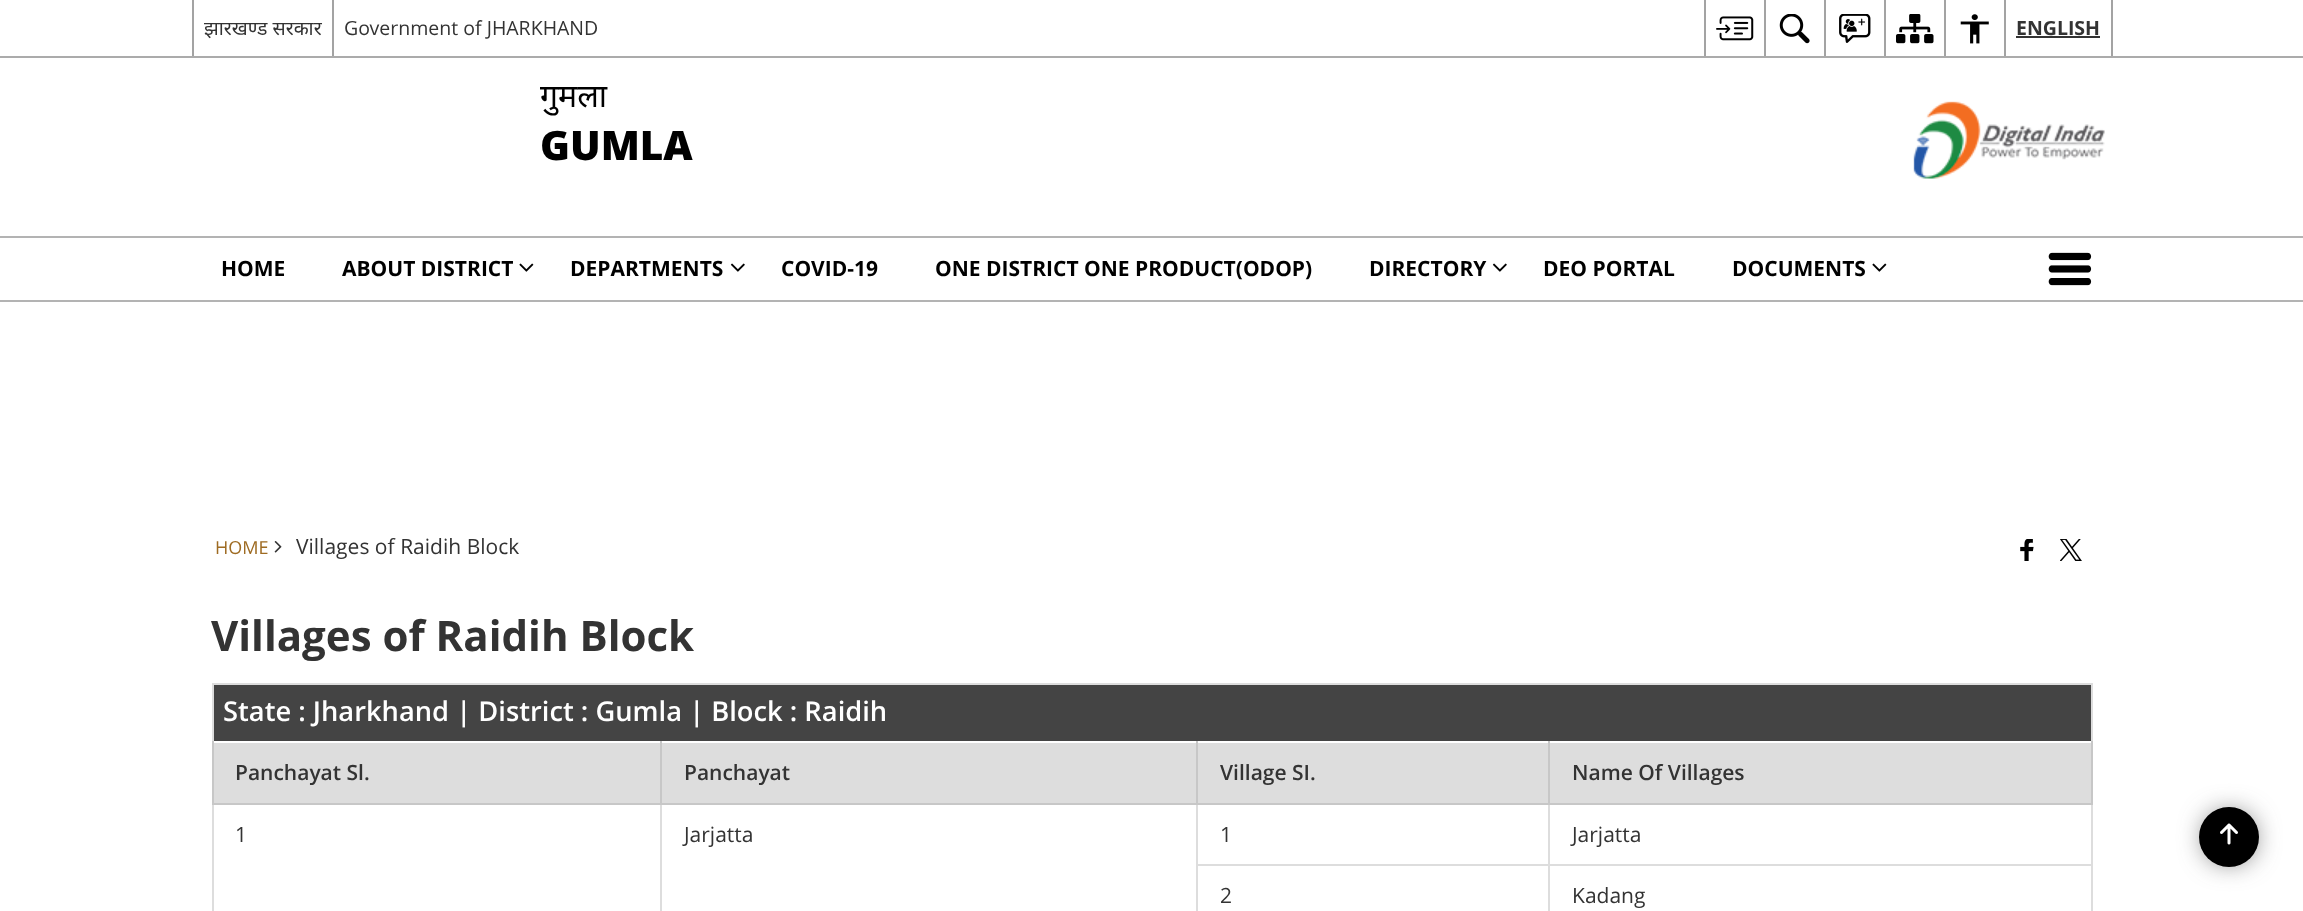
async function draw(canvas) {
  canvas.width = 2303
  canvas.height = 911
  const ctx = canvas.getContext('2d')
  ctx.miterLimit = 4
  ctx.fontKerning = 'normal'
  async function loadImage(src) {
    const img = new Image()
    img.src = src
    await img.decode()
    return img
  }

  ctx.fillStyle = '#fff'
  ctx.fillRect(0, 0, 2303, 911)
  ctx.fillStyle = '#ababab'
  ctx.fillRect(0, 56, 2303, 2)
  ctx.fillStyle = '#a3a3a3'
  ctx.fillRect(192, 0, 2, 56)
  ctx.font = '19.5px Noto Sans'
  ctx.fillStyle = '#333'
  ctx.fillText('झारखण्ड सरकार', 204, 35)
  ctx.fillStyle = '#a3a3a3'
  ctx.fillRect(332, 0, 2, 56)
  ctx.font = '19.5px Open Sans'
  ctx.fillStyle = '#333'
  ctx.fillText('Government of JHARKHAND', 344, 35)
  ctx.fillStyle = '#a3a3a3'
  ctx.fillRect(1704, 0, 2, 56)
  ctx.drawImage(await loadImage('image0.png'), 1716, 16, 38, 25)
  ctx.fillRect(1764, 0, 2, 56)
  ctx.drawImage(await loadImage('image1.png'), 1779, 14, 31, 30)
  ctx.fillRect(1824, 0, 2, 56)
  ctx.drawImage(await loadImage('image2.png'), 1839, 14, 32, 29)
  ctx.fillRect(1884, 0, 2, 56)
  ctx.drawImage(await loadImage('image3.png'), 1896, 14, 38, 30)
  ctx.fillRect(1944, 0, 2, 56)
  ctx.drawImage(await loadImage('image4.png'), 1960, 14, 29, 30)
  ctx.fillRect(2111, 0, 2, 56)
  ctx.fillRect(2004, 0, 2, 56)
  ctx.font = 'bold 19.5px Open Sans'
  ctx.fillStyle = '#333'
  ctx.fillText('ENGLISH', 2016, 35)
  ctx.fillRect(2016, 36, 84, 2)
  ctx.font = '32px Noto Sans'
  ctx.fillStyle = '#000'
  ctx.fillText('गुमला', 540, 107)
  ctx.font = '800 40.5px Open Sans'
  ctx.fillText('GUMLA', 540, 160)
  ctx.drawImage(await loadImage('image5.png'), 1913, 101, 192, 78)
  ctx.fillStyle = '#b3b3b3'
  ctx.fillRect(0, 236, 2303, 2)
  ctx.fillRect(0, 300, 2303, 2)
  ctx.font = 'bold 21px Open Sans'
  ctx.fillStyle = '#000'
  ctx.fillText('HOME', 221, 276)
  ctx.fillText('ABOUT DISTRICT', 342, 276)
  ctx.drawImage(await loadImage('image6.png'), 519, 263, 15, 9)
  ctx.fillText('DEPARTMENTS', 570, 276)
  ctx.drawImage(await loadImage('image7.png'), 730, 263, 15, 9)
  ctx.fillText('COVID-19', 781, 276)
  ctx.fillText('ONE DISTRICT ONE PRODUCT(ODOP)', 935, 276)
  ctx.fillText('DIRECTORY', 1369, 276)
  ctx.drawImage(await loadImage('image7.png'), 1492, 263, 15, 9)
  ctx.fillText('DEO PORTAL', 1543, 276)
  ctx.fillText('DOCUMENTS', 1732, 276)
  ctx.drawImage(await loadImage('image6.png'), 1872, 263, 15, 9)
  ctx.drawImage(await loadImage('image8.png'), 2048, 252, 44, 34)
  ctx.font = '18px Open Sans'
  ctx.fillStyle = '#9e6b22'
  ctx.fillText('HOME', 215, 554)
  ctx.drawImage(await loadImage('image9.png'), 274, 541, 8, 12)
  ctx.font = '21px Open Sans'
  ctx.fillStyle = '#333'
  ctx.fillText('Villages of Raidih Block', 296, 554)
  ctx.drawImage(await loadImage('image10.png'), 2020, 539, 14, 22)
  ctx.drawImage(await loadImage('image11.png'), 2060, 539, 22, 22)
  ctx.font = 'bold 42px Open Sans'
  ctx.fillText('Villages of Raidih Block', 211, 651)
  ctx.fillStyle = '#ddd'
  ctx.fillRect(212, 683, 1881, 2)
  ctx.fillRect(2091, 683, 2, 228)
  ctx.fillRect(212, 683, 2, 228)
  ctx.fillStyle = '#444'
  ctx.fillRect(214, 685, 1877, 56)
  ctx.font = '600 27.3px Open Sans'
  ctx.fillStyle = '#fff'
  ctx.fillText('State : Jharkhand | District : Gumla | Block : Raidih', 223, 721)
  ctx.fillStyle = '#ddd'
  ctx.fillRect(214, 743, 446, 60)
  ctx.fillStyle = '#c7c7c7'
  ctx.fillRect(2091, 741, 2, 63)
  ctx.fillStyle = '#ddd'
  ctx.fillRect(1196, 864, 897, 2)
  ctx.fillRect(1548, 803, 2, 108)
  ctx.fillStyle = '#c7c7c7'
  ctx.fillRect(1548, 803, 545, 2)
  ctx.fillRect(1548, 741, 2, 63)
  ctx.fillStyle = '#ddd'
  ctx.fillRect(1196, 803, 2, 108)
  ctx.fillStyle = '#c7c7c7'
  ctx.fillRect(1196, 803, 354, 2)
  ctx.fillRect(1196, 741, 2, 63)
  ctx.fillStyle = '#ddd'
  ctx.fillRect(660, 803, 2, 108)
  ctx.fillStyle = '#c7c7c7'
  ctx.fillRect(660, 803, 537, 2)
  ctx.fillRect(660, 741, 2, 63)
  ctx.fillRect(212, 803, 450, 2)
  ctx.fillRect(212, 741, 2, 63)
  ctx.font = '600 21px Open Sans'
  ctx.fillStyle = '#333'
  ctx.fillText('Panchayat Sl.', 235, 780)
  ctx.fillStyle = '#ddd'
  ctx.fillRect(662, 743, 534, 60)
  ctx.fillStyle = '#333'
  ctx.fillText('Panchayat', 684, 780)
  ctx.fillStyle = '#ddd'
  ctx.fillRect(1198, 743, 350, 60)
  ctx.fillStyle = '#333'
  ctx.fillText('Village SI.', 1220, 780)
  ctx.fillStyle = '#ddd'
  ctx.fillRect(1550, 743, 541, 60)
  ctx.fillStyle = '#333'
  ctx.fillText('Name Of Villages', 1572, 780)
  ctx.font = '21px Open Sans'
  ctx.fillText('1', 235, 842)
  ctx.fillText('Jarjatta', 684, 842)
  ctx.fillText('1', 1220, 842)
  ctx.fillText('Jarjatta', 1572, 842)
  ctx.fillText('2', 1220, 903)
  ctx.fillText('Kadang', 1572, 903)
  ctx.fillStyle = '#3c3c3c'
  ctx.filter = 'blur(14px)'
  ctx.beginPath()
  ctx.roundRect(2207, 815, 45, 45, 22.5)
  ctx.fill()
  ctx.filter = 'none'
  ctx.fillStyle = '#000'
  ctx.beginPath()
  ctx.arc(2229, 837, 30, 0, 2 * Math.PI)
  ctx.fill()
  ctx.drawImage(await loadImage('image12.png'), 2220, 823, 18, 22)
}

draw(document.querySelector('canvas'))
